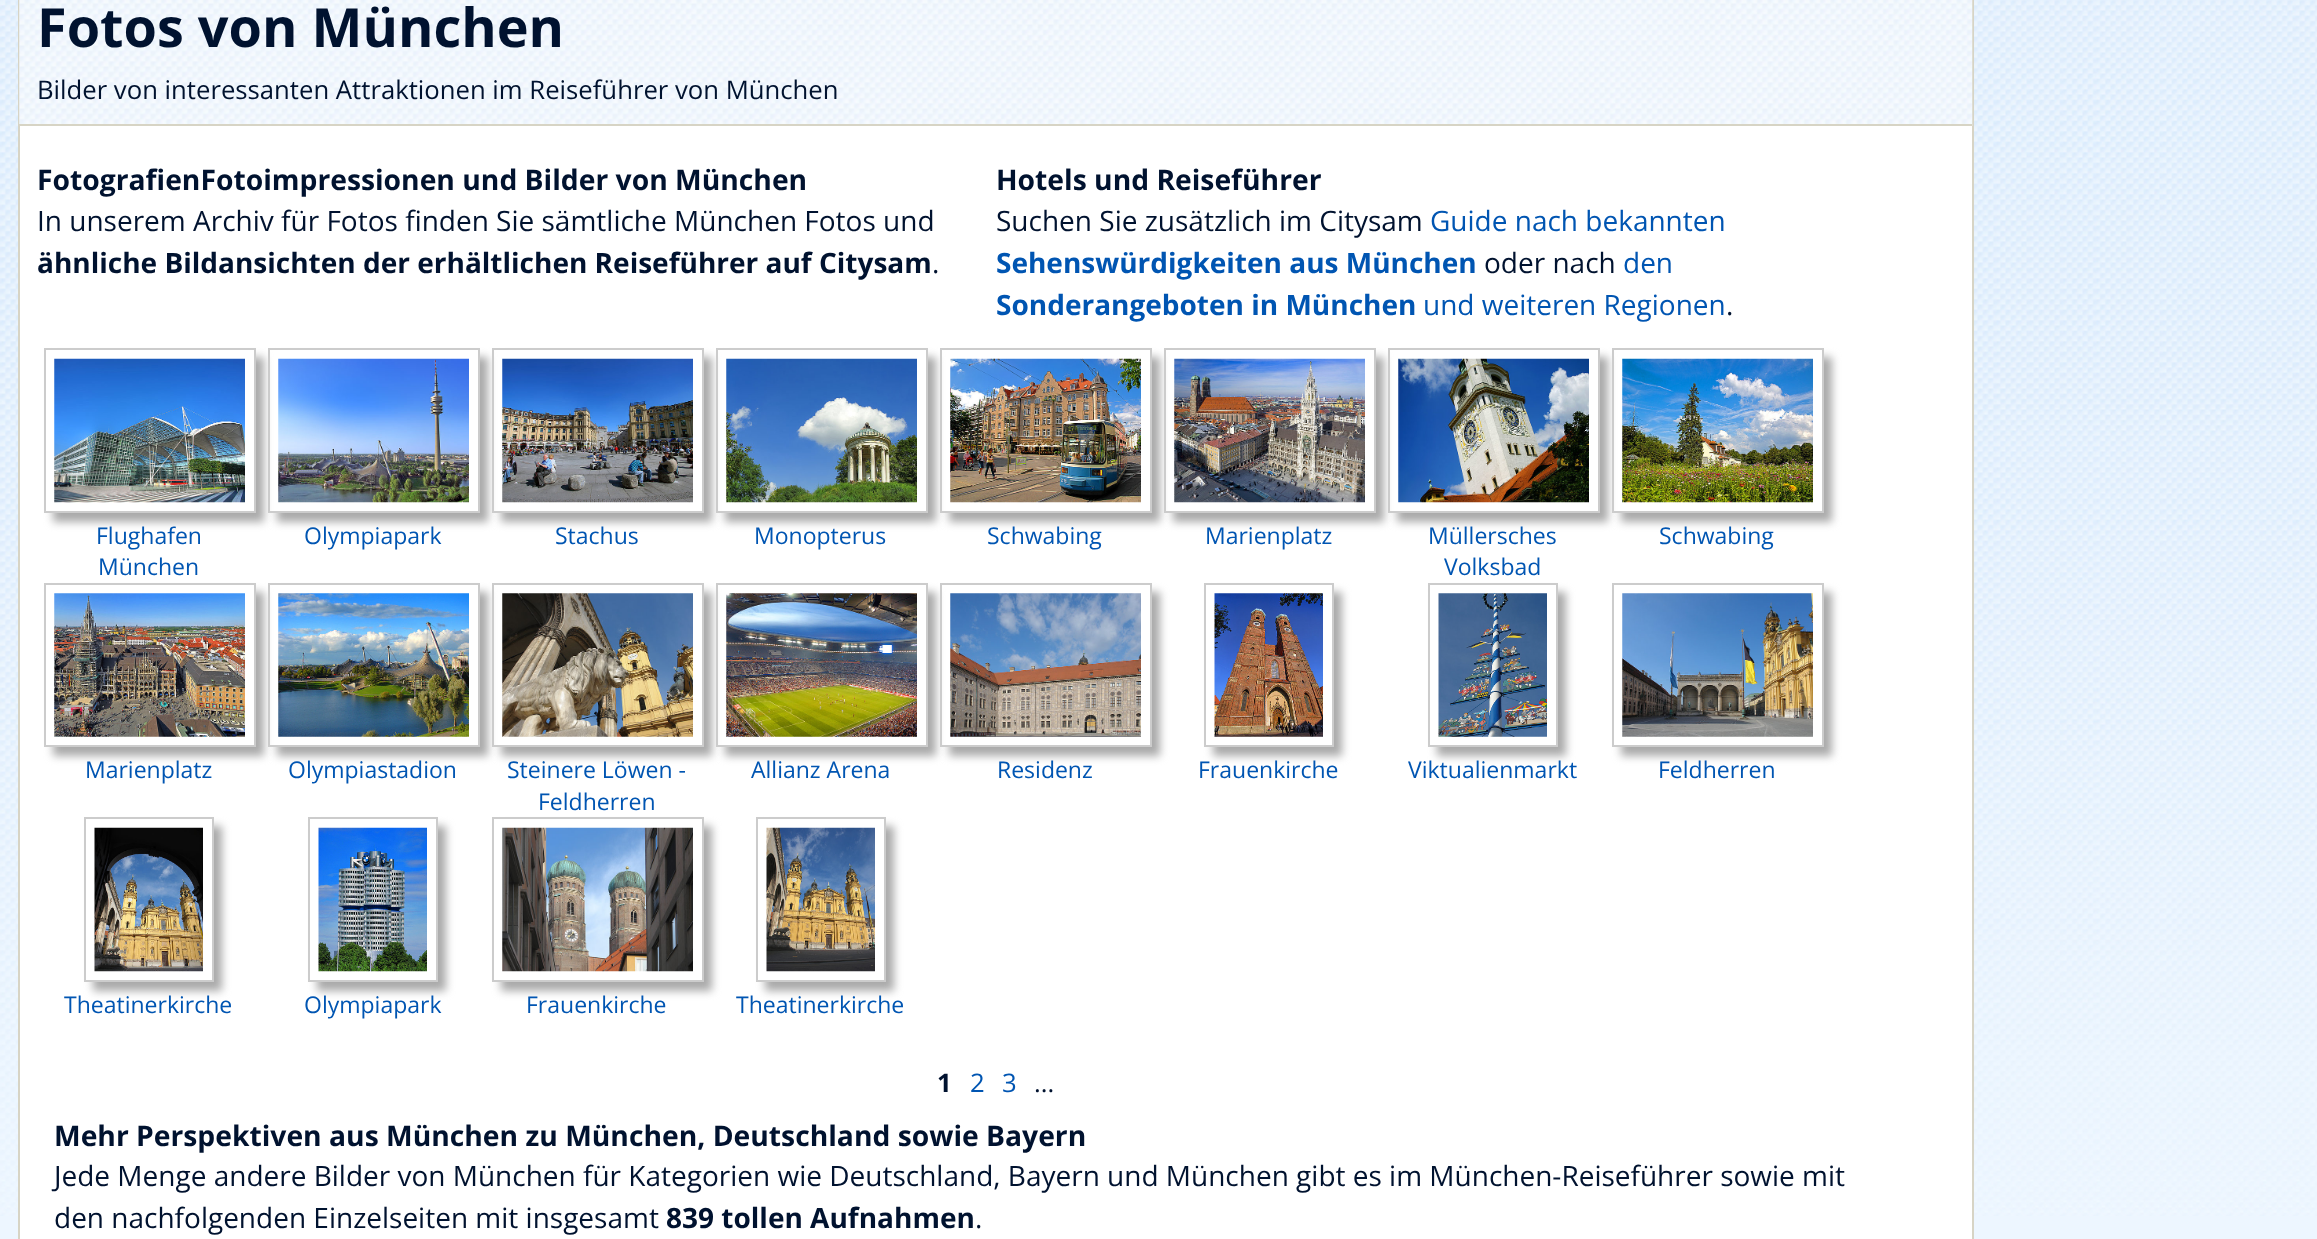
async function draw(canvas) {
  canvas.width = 2317
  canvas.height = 1239
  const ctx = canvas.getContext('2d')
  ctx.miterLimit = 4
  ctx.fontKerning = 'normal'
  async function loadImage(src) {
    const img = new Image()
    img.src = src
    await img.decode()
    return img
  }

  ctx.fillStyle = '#edf6ff'
  ctx.fillRect(0, 0, 2317, 1239)
  ctx.drawImage(await loadImage('image0.png'), 0, 0, 2317, 1216)
  ctx.fillStyle = '#fff'
  ctx.fillRect(20, 126, 1952, 1113)
  ctx.strokeStyle = '#d7d4c5'
  ctx.lineWidth = 2
  ctx.strokeRect(19, -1, 1954, 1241)
  ctx.drawImage(await loadImage('image1.png'), 19, 0, 1954, 126)
  ctx.fillStyle = '#d7d4c5'
  ctx.fillRect(19, 124, 1953, 2)
  ctx.font = 'bold 54px Open Sans'
  ctx.fillStyle = '#00122f'
  ctx.fillText('Fotos von München', 37, 47)
  ctx.font = '25.7px Open Sans'
  ctx.fillText('Bilder von interessanten Attraktionen im Reiseführer von München', 37, 99)
  ctx.font = 'bold 28.25px Open Sans'
  ctx.fillText('FotografienFotoimpressionen und Bilder von München', 37, 190)
  ctx.font = '28px Open Sans'
  ctx.fillText('In unserem Archiv für Fotos finden Sie sämtliche München Fotos und', 37, 231)
  ctx.font = 'bold 28px Open Sans'
  ctx.fillText('ähnliche Bildansichten der erhältlichen Reiseführer auf Citysam', 37, 273)
  ctx.font = '28px Open Sans'
  ctx.fillText('.', 932, 273)
  ctx.font = 'bold 28.25px Open Sans'
  ctx.fillText('Hotels und Reiseführer', 996, 190)
  ctx.font = '28px Open Sans'
  ctx.fillText('Suchen Sie zusätzlich im Citysam', 996, 231)
  ctx.fillStyle = '#0055b2'
  ctx.fillText('Guide nach bekannten', 1430, 231)
  ctx.font = 'bold 28px Open Sans'
  ctx.fillText('Sehenswürdigkeiten aus München', 996, 273)
  ctx.font = '28px Open Sans'
  ctx.fillStyle = '#00122f'
  ctx.fillText('oder nach', 1484, 273)
  ctx.fillStyle = '#0055b2'
  ctx.fillText('den', 1623, 273)
  ctx.font = 'bold 28px Open Sans'
  ctx.fillText('Sonderangeboten in München', 996, 315)
  ctx.font = '28px Open Sans'
  ctx.fillText('und weiteren Regionen', 1423, 315)
  ctx.fillStyle = '#00122f'
  ctx.fillText('.', 1726, 315)
  ctx.save()
  ctx.beginPath()
  ctx.moveTo(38, 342)
  ctx.lineTo(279, 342)
  ctx.lineTo(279, 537)
  ctx.lineTo(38, 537)
  ctx.closePath()
  ctx.moveTo(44, 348)
  ctx.lineTo(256, 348)
  ctx.lineTo(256, 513)
  ctx.lineTo(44, 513)
  ctx.closePath()
  ctx.clip('evenodd')
  ctx.fillStyle = '#aaa'
  ctx.filter = 'blur(4.5px)'
  ctx.beginPath()
  ctx.rect(53, 357, 211, 165)
  ctx.fill()
  ctx.filter = 'none'
  ctx.restore()
  ctx.strokeStyle = '#ccc'
  ctx.strokeRect(45, 349, 210, 163)
  ctx.drawImage(await loadImage('image2.png'), 54, 358, 191, 145)
  ctx.font = '23px Open Sans'
  ctx.fillStyle = '#0055b2'
  ctx.fillText('Flughafen', 96, 544)
  ctx.fillText('München', 98, 575)
  ctx.save()
  ctx.beginPath()
  ctx.moveTo(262, 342)
  ctx.lineTo(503, 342)
  ctx.lineTo(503, 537)
  ctx.lineTo(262, 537)
  ctx.closePath()
  ctx.moveTo(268, 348)
  ctx.lineTo(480, 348)
  ctx.lineTo(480, 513)
  ctx.lineTo(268, 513)
  ctx.closePath()
  ctx.clip('evenodd')
  ctx.fillStyle = '#aaa'
  ctx.filter = 'blur(4.5px)'
  ctx.beginPath()
  ctx.rect(277, 357, 211, 165)
  ctx.fill()
  ctx.filter = 'none'
  ctx.restore()
  ctx.strokeRect(269, 349, 210, 163)
  ctx.drawImage(await loadImage('image3.png'), 278, 358, 191, 145)
  ctx.fillText('Olympiapark', 304, 544)
  ctx.save()
  ctx.beginPath()
  ctx.moveTo(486, 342)
  ctx.lineTo(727, 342)
  ctx.lineTo(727, 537)
  ctx.lineTo(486, 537)
  ctx.closePath()
  ctx.moveTo(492, 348)
  ctx.lineTo(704, 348)
  ctx.lineTo(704, 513)
  ctx.lineTo(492, 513)
  ctx.closePath()
  ctx.clip('evenodd')
  ctx.fillStyle = '#aaa'
  ctx.filter = 'blur(4.5px)'
  ctx.beginPath()
  ctx.rect(501, 357, 211, 165)
  ctx.fill()
  ctx.filter = 'none'
  ctx.restore()
  ctx.strokeRect(493, 349, 210, 163)
  ctx.drawImage(await loadImage('image4.png'), 502, 358, 191, 145)
  ctx.fillText('Stachus', 555, 544)
  ctx.save()
  ctx.beginPath()
  ctx.moveTo(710, 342)
  ctx.lineTo(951, 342)
  ctx.lineTo(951, 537)
  ctx.lineTo(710, 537)
  ctx.closePath()
  ctx.moveTo(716, 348)
  ctx.lineTo(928, 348)
  ctx.lineTo(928, 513)
  ctx.lineTo(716, 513)
  ctx.closePath()
  ctx.clip('evenodd')
  ctx.fillStyle = '#aaa'
  ctx.filter = 'blur(4.5px)'
  ctx.beginPath()
  ctx.rect(725, 357, 211, 165)
  ctx.fill()
  ctx.filter = 'none'
  ctx.restore()
  ctx.strokeRect(717, 349, 210, 163)
  ctx.drawImage(await loadImage('image5.png'), 726, 358, 191, 145)
  ctx.fillText('Monopterus', 754, 544)
  ctx.save()
  ctx.beginPath()
  ctx.moveTo(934, 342)
  ctx.lineTo(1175, 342)
  ctx.lineTo(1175, 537)
  ctx.lineTo(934, 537)
  ctx.closePath()
  ctx.moveTo(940, 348)
  ctx.lineTo(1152, 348)
  ctx.lineTo(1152, 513)
  ctx.lineTo(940, 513)
  ctx.closePath()
  ctx.clip('evenodd')
  ctx.fillStyle = '#aaa'
  ctx.filter = 'blur(4.5px)'
  ctx.beginPath()
  ctx.rect(949, 357, 211, 165)
  ctx.fill()
  ctx.filter = 'none'
  ctx.restore()
  ctx.strokeRect(941, 349, 210, 163)
  ctx.drawImage(await loadImage('image6.png'), 950, 358, 191, 145)
  ctx.fillText('Schwabing', 987, 544)
  ctx.save()
  ctx.beginPath()
  ctx.moveTo(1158, 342)
  ctx.lineTo(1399, 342)
  ctx.lineTo(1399, 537)
  ctx.lineTo(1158, 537)
  ctx.closePath()
  ctx.moveTo(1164, 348)
  ctx.lineTo(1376, 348)
  ctx.lineTo(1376, 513)
  ctx.lineTo(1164, 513)
  ctx.closePath()
  ctx.clip('evenodd')
  ctx.fillStyle = '#aaa'
  ctx.filter = 'blur(4.5px)'
  ctx.beginPath()
  ctx.rect(1173, 357, 211, 165)
  ctx.fill()
  ctx.filter = 'none'
  ctx.restore()
  ctx.strokeRect(1165, 349, 210, 163)
  ctx.drawImage(await loadImage('image7.png'), 1174, 358, 191, 145)
  ctx.fillText('Marienplatz', 1205, 544)
  ctx.save()
  ctx.beginPath()
  ctx.moveTo(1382, 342)
  ctx.lineTo(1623, 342)
  ctx.lineTo(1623, 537)
  ctx.lineTo(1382, 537)
  ctx.closePath()
  ctx.moveTo(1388, 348)
  ctx.lineTo(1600, 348)
  ctx.lineTo(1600, 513)
  ctx.lineTo(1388, 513)
  ctx.closePath()
  ctx.clip('evenodd')
  ctx.fillStyle = '#aaa'
  ctx.filter = 'blur(4.5px)'
  ctx.beginPath()
  ctx.rect(1397, 357, 211, 165)
  ctx.fill()
  ctx.filter = 'none'
  ctx.restore()
  ctx.strokeRect(1389, 349, 210, 163)
  ctx.drawImage(await loadImage('image8.png'), 1398, 358, 191, 145)
  ctx.fillText('Müllersches', 1428, 544)
  ctx.fillText('Volksbad', 1444, 575)
  ctx.save()
  ctx.beginPath()
  ctx.moveTo(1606, 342)
  ctx.lineTo(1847, 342)
  ctx.lineTo(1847, 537)
  ctx.lineTo(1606, 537)
  ctx.closePath()
  ctx.moveTo(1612, 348)
  ctx.lineTo(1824, 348)
  ctx.lineTo(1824, 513)
  ctx.lineTo(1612, 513)
  ctx.closePath()
  ctx.clip('evenodd')
  ctx.fillStyle = '#aaa'
  ctx.filter = 'blur(4.5px)'
  ctx.beginPath()
  ctx.rect(1621, 357, 211, 165)
  ctx.fill()
  ctx.filter = 'none'
  ctx.restore()
  ctx.strokeRect(1613, 349, 210, 163)
  ctx.drawImage(await loadImage('image9.png'), 1622, 358, 191, 145)
  ctx.fillText('Schwabing', 1659, 544)
  ctx.save()
  ctx.beginPath()
  ctx.moveTo(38, 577)
  ctx.lineTo(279, 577)
  ctx.lineTo(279, 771)
  ctx.lineTo(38, 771)
  ctx.closePath()
  ctx.moveTo(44, 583)
  ctx.lineTo(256, 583)
  ctx.lineTo(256, 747)
  ctx.lineTo(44, 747)
  ctx.closePath()
  ctx.clip('evenodd')
  ctx.fillStyle = '#aaa'
  ctx.filter = 'blur(4.5px)'
  ctx.beginPath()
  ctx.rect(53, 592, 211, 164)
  ctx.fill()
  ctx.filter = 'none'
  ctx.restore()
  ctx.strokeRect(45, 584, 210, 162)
  ctx.drawImage(await loadImage('image10.png'), 54, 593, 191, 144)
  ctx.fillText('Marienplatz', 85, 778)
  ctx.save()
  ctx.beginPath()
  ctx.moveTo(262, 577)
  ctx.lineTo(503, 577)
  ctx.lineTo(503, 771)
  ctx.lineTo(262, 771)
  ctx.closePath()
  ctx.moveTo(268, 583)
  ctx.lineTo(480, 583)
  ctx.lineTo(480, 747)
  ctx.lineTo(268, 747)
  ctx.closePath()
  ctx.clip('evenodd')
  ctx.fillStyle = '#aaa'
  ctx.filter = 'blur(4.5px)'
  ctx.beginPath()
  ctx.rect(277, 592, 211, 164)
  ctx.fill()
  ctx.filter = 'none'
  ctx.restore()
  ctx.strokeRect(269, 584, 210, 162)
  ctx.drawImage(await loadImage('image11.png'), 278, 593, 191, 144)
  ctx.fillText('Olympiastadion', 288, 778)
  ctx.save()
  ctx.beginPath()
  ctx.moveTo(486, 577)
  ctx.lineTo(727, 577)
  ctx.lineTo(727, 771)
  ctx.lineTo(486, 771)
  ctx.closePath()
  ctx.moveTo(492, 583)
  ctx.lineTo(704, 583)
  ctx.lineTo(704, 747)
  ctx.lineTo(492, 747)
  ctx.closePath()
  ctx.clip('evenodd')
  ctx.fillStyle = '#aaa'
  ctx.filter = 'blur(4.5px)'
  ctx.beginPath()
  ctx.rect(501, 592, 211, 164)
  ctx.fill()
  ctx.filter = 'none'
  ctx.restore()
  ctx.strokeRect(493, 584, 210, 162)
  ctx.drawImage(await loadImage('image12.png'), 502, 593, 191, 144)
  ctx.fillText('Steinere Löwen -', 507, 778)
  ctx.fillText('Feldherren', 538, 810)
  ctx.save()
  ctx.beginPath()
  ctx.moveTo(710, 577)
  ctx.lineTo(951, 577)
  ctx.lineTo(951, 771)
  ctx.lineTo(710, 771)
  ctx.closePath()
  ctx.moveTo(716, 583)
  ctx.lineTo(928, 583)
  ctx.lineTo(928, 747)
  ctx.lineTo(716, 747)
  ctx.closePath()
  ctx.clip('evenodd')
  ctx.fillStyle = '#aaa'
  ctx.filter = 'blur(4.5px)'
  ctx.beginPath()
  ctx.rect(725, 592, 211, 164)
  ctx.fill()
  ctx.filter = 'none'
  ctx.restore()
  ctx.strokeRect(717, 584, 210, 162)
  ctx.drawImage(await loadImage('image13.png'), 726, 593, 191, 144)
  ctx.fillText('Allianz Arena', 751, 778)
  ctx.save()
  ctx.beginPath()
  ctx.moveTo(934, 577)
  ctx.lineTo(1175, 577)
  ctx.lineTo(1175, 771)
  ctx.lineTo(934, 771)
  ctx.closePath()
  ctx.moveTo(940, 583)
  ctx.lineTo(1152, 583)
  ctx.lineTo(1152, 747)
  ctx.lineTo(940, 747)
  ctx.closePath()
  ctx.clip('evenodd')
  ctx.fillStyle = '#aaa'
  ctx.filter = 'blur(4.5px)'
  ctx.beginPath()
  ctx.rect(949, 592, 211, 164)
  ctx.fill()
  ctx.filter = 'none'
  ctx.restore()
  ctx.strokeRect(941, 584, 210, 162)
  ctx.drawImage(await loadImage('image14.png'), 950, 593, 191, 144)
  ctx.fillText('Residenz', 997, 778)
  ctx.save()
  ctx.beginPath()
  ctx.moveTo(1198, 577)
  ctx.lineTo(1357, 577)
  ctx.lineTo(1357, 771)
  ctx.lineTo(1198, 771)
  ctx.closePath()
  ctx.moveTo(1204, 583)
  ctx.lineTo(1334, 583)
  ctx.lineTo(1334, 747)
  ctx.lineTo(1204, 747)
  ctx.closePath()
  ctx.clip('evenodd')
  ctx.fillStyle = '#aaa'
  ctx.filter = 'blur(4.5px)'
  ctx.beginPath()
  ctx.rect(1213, 592, 129, 164)
  ctx.fill()
  ctx.filter = 'none'
  ctx.restore()
  ctx.strokeRect(1205, 584, 128, 162)
  ctx.drawImage(await loadImage('image15.png'), 1214, 593, 109, 144)
  ctx.fillText('Frauenkirche', 1198, 778)
  ctx.save()
  ctx.beginPath()
  ctx.moveTo(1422, 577)
  ctx.lineTo(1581, 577)
  ctx.lineTo(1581, 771)
  ctx.lineTo(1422, 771)
  ctx.closePath()
  ctx.moveTo(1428, 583)
  ctx.lineTo(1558, 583)
  ctx.lineTo(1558, 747)
  ctx.lineTo(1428, 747)
  ctx.closePath()
  ctx.clip('evenodd')
  ctx.fillStyle = '#aaa'
  ctx.filter = 'blur(4.5px)'
  ctx.beginPath()
  ctx.rect(1437, 592, 129, 164)
  ctx.fill()
  ctx.filter = 'none'
  ctx.restore()
  ctx.strokeRect(1429, 584, 128, 162)
  ctx.drawImage(await loadImage('image16.png'), 1438, 593, 109, 144)
  ctx.fillText('Viktualienmarkt', 1408, 778)
  ctx.save()
  ctx.beginPath()
  ctx.moveTo(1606, 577)
  ctx.lineTo(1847, 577)
  ctx.lineTo(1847, 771)
  ctx.lineTo(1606, 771)
  ctx.closePath()
  ctx.moveTo(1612, 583)
  ctx.lineTo(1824, 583)
  ctx.lineTo(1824, 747)
  ctx.lineTo(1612, 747)
  ctx.closePath()
  ctx.clip('evenodd')
  ctx.fillStyle = '#aaa'
  ctx.filter = 'blur(4.5px)'
  ctx.beginPath()
  ctx.rect(1621, 592, 211, 164)
  ctx.fill()
  ctx.filter = 'none'
  ctx.restore()
  ctx.strokeRect(1613, 584, 210, 162)
  ctx.drawImage(await loadImage('image17.png'), 1622, 593, 191, 144)
  ctx.fillText('Feldherren', 1658, 778)
  ctx.save()
  ctx.beginPath()
  ctx.moveTo(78, 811)
  ctx.lineTo(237, 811)
  ctx.lineTo(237, 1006)
  ctx.lineTo(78, 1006)
  ctx.closePath()
  ctx.moveTo(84, 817)
  ctx.lineTo(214, 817)
  ctx.lineTo(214, 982)
  ctx.lineTo(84, 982)
  ctx.closePath()
  ctx.clip('evenodd')
  ctx.fillStyle = '#aaa'
  ctx.filter = 'blur(4.5px)'
  ctx.beginPath()
  ctx.rect(93, 826, 129, 165)
  ctx.fill()
  ctx.filter = 'none'
  ctx.restore()
  ctx.strokeRect(85, 818, 128, 163)
  ctx.drawImage(await loadImage('image18.png'), 94, 827, 109, 145)
  ctx.fillText('Theatinerkirche', 64, 1013)
  ctx.save()
  ctx.beginPath()
  ctx.moveTo(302, 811)
  ctx.lineTo(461, 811)
  ctx.lineTo(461, 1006)
  ctx.lineTo(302, 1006)
  ctx.closePath()
  ctx.moveTo(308, 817)
  ctx.lineTo(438, 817)
  ctx.lineTo(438, 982)
  ctx.lineTo(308, 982)
  ctx.closePath()
  ctx.clip('evenodd')
  ctx.fillStyle = '#aaa'
  ctx.filter = 'blur(4.5px)'
  ctx.beginPath()
  ctx.rect(317, 826, 129, 165)
  ctx.fill()
  ctx.filter = 'none'
  ctx.restore()
  ctx.strokeRect(309, 818, 128, 163)
  ctx.drawImage(await loadImage('image19.png'), 318, 827, 109, 145)
  ctx.fillText('Olympiapark', 304, 1013)
  ctx.save()
  ctx.beginPath()
  ctx.moveTo(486, 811)
  ctx.lineTo(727, 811)
  ctx.lineTo(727, 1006)
  ctx.lineTo(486, 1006)
  ctx.closePath()
  ctx.moveTo(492, 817)
  ctx.lineTo(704, 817)
  ctx.lineTo(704, 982)
  ctx.lineTo(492, 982)
  ctx.closePath()
  ctx.clip('evenodd')
  ctx.fillStyle = '#aaa'
  ctx.filter = 'blur(4.5px)'
  ctx.beginPath()
  ctx.rect(501, 826, 211, 165)
  ctx.fill()
  ctx.filter = 'none'
  ctx.restore()
  ctx.strokeRect(493, 818, 210, 163)
  ctx.drawImage(await loadImage('image20.png'), 502, 827, 191, 145)
  ctx.fillText('Frauenkirche', 526, 1013)
  ctx.save()
  ctx.beginPath()
  ctx.moveTo(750, 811)
  ctx.lineTo(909, 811)
  ctx.lineTo(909, 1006)
  ctx.lineTo(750, 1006)
  ctx.closePath()
  ctx.moveTo(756, 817)
  ctx.lineTo(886, 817)
  ctx.lineTo(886, 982)
  ctx.lineTo(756, 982)
  ctx.closePath()
  ctx.clip('evenodd')
  ctx.fillStyle = '#aaa'
  ctx.filter = 'blur(4.5px)'
  ctx.beginPath()
  ctx.rect(765, 826, 129, 165)
  ctx.fill()
  ctx.filter = 'none'
  ctx.restore()
  ctx.strokeRect(757, 818, 128, 163)
  ctx.drawImage(await loadImage('image21.png'), 766, 827, 109, 145)
  ctx.fillText('Theatinerkirche', 736, 1013)
  ctx.font = 'bold 25.7px Open Sans'
  ctx.fillStyle = '#00122f'
  ctx.fillText('1', 937, 1092)
  ctx.font = '25.7px Open Sans'
  ctx.fillStyle = '#0055b2'
  ctx.fillText('2', 970, 1092)
  ctx.fillText('3', 1002, 1092)
  ctx.fillStyle = '#00122f'
  ctx.fillText('...', 1034, 1092)
  ctx.font = 'bold 28.25px Open Sans'
  ctx.fillText('Mehr Perspektiven aus München zu München, Deutschland sowie Bayern', 54, 1146)
  ctx.font = '28px Open Sans'
  ctx.fillText('Jede Menge andere Bilder von München für Kategorien wie Deutschland, Bayern und München gibt es im München-Reiseführer sowie mit', 54, 1186)
  ctx.fillText('den nachfolgenden Einzelseiten mit insgesamt', 54, 1228)
  ctx.font = 'bold 28px Open Sans'
  ctx.fillText('839 tollen Aufnahmen', 666, 1228)
  ctx.font = '28px Open Sans'
  ctx.fillText('.', 975, 1228)
}

draw(document.querySelector('canvas'))
